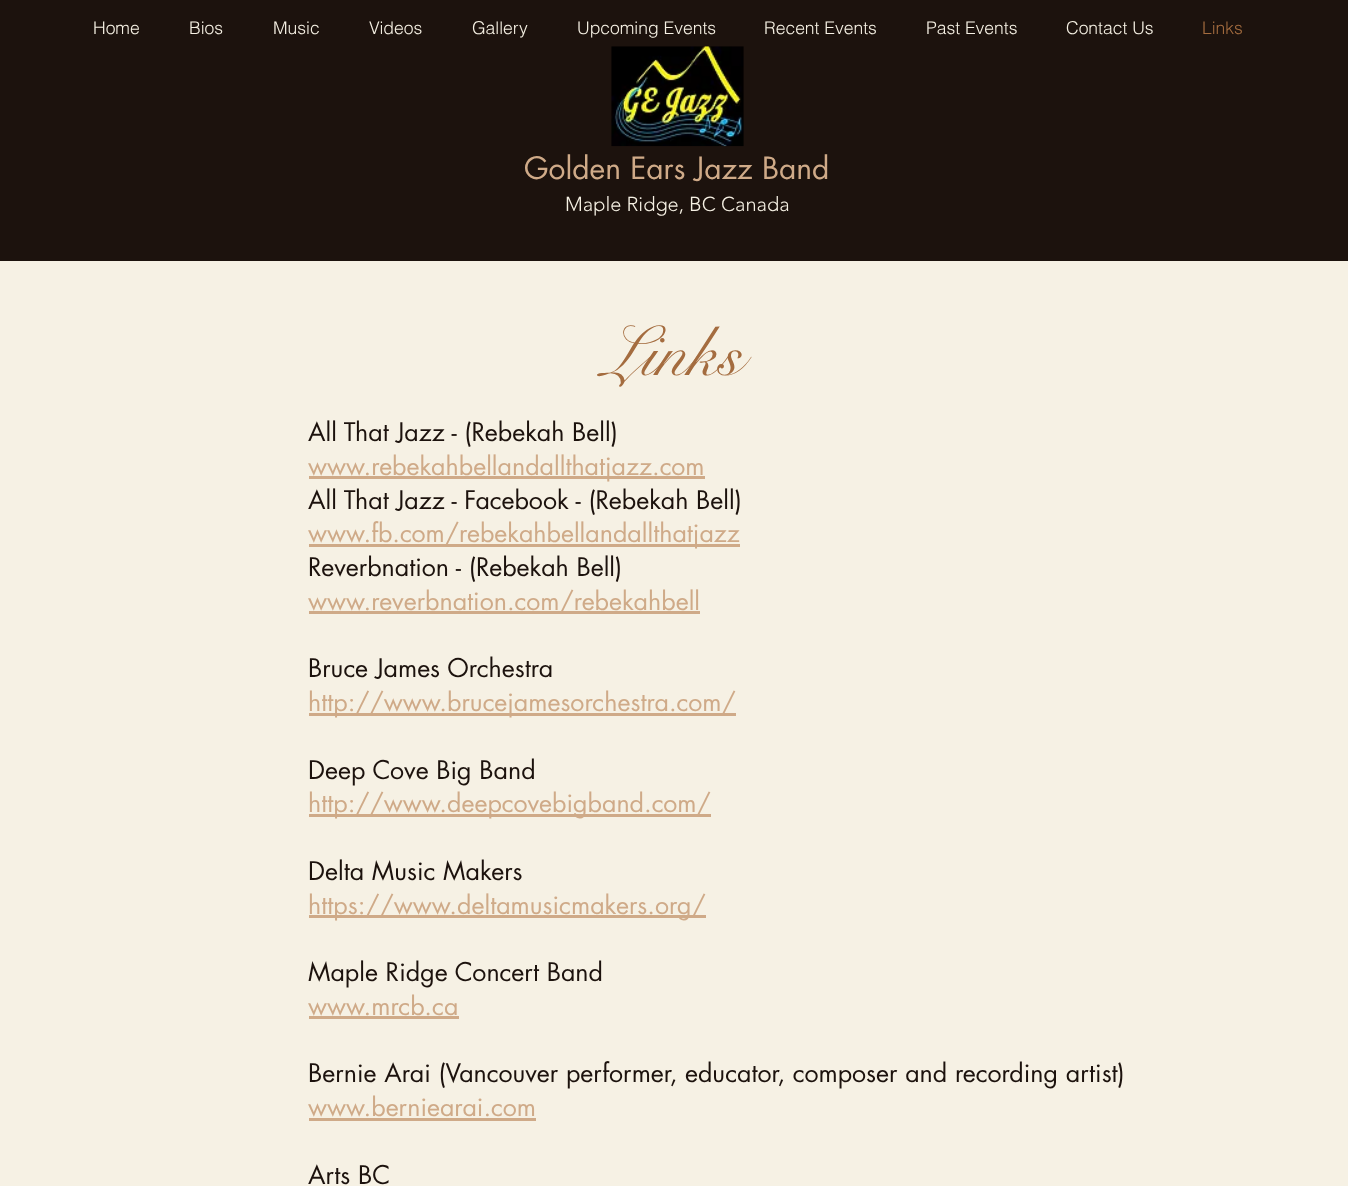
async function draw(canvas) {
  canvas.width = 1348
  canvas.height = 1186
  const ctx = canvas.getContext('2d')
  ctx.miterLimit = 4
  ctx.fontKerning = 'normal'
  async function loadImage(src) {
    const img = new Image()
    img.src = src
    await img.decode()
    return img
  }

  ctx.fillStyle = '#f6f1e4'
  ctx.fillRect(0, 0, 1348, 1186)
  ctx.fillStyle = '#1c120d'
  ctx.fillRect(0, 0, 1348, 261)
  ctx.font = '300 17.5px helvetica'
  ctx.fillStyle = '#f6f1e4'
  ctx.fillText('Home', 93, 34)
  ctx.fillText('Bios', 189, 34)
  ctx.fillText('Music', 273, 34)
  ctx.fillText('Videos', 369, 34)
  ctx.fillText('Gallery', 472, 34)
  ctx.fillText('Upcoming Events', 577, 34)
  ctx.fillText('Recent Events', 764, 34)
  ctx.fillText('Past Events', 926, 34)
  ctx.fillText('Contact Us', 1066, 34)
  ctx.fillStyle = '#a46c3f'
  ctx.fillText('Links', 1202, 34)
  ctx.drawImage(await loadImage('image0.png'), 611, 46, 133, 101)
  ctx.font = '30px futura'
  ctx.fillStyle = '#cfaa88'
  ctx.fillText('Golden Ears Jazz Band', 524, 179)
  ctx.font = '300 20px "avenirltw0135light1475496"'
  ctx.fillStyle = '#f6f1e4'
  ctx.fillText('Maple Ridge, BC Canada', 565, 211)
  ctx.font = '70px "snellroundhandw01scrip"'
  ctx.fillStyle = '#a46c3f'
  ctx.fillText('Links', 603, 375)
  ctx.font = '25px futura'
  ctx.fillStyle = '#1c120d'
  ctx.fillText('All That Jazz - (Rebekah Bell)', 308, 441)
  ctx.fillStyle = '#cfaa88'
  ctx.fillRect(309, 476, 396, 3)
  ctx.fillText('www.rebekahbellandallthatjazz.com', 308, 475)
  ctx.fillStyle = '#1c120d'
  ctx.fillText('All That Jazz - Facebook - (Rebekah Bell)', 308, 509)
  ctx.fillStyle = '#cfaa88'
  ctx.fillRect(309, 544, 431, 3)
  ctx.fillText('www.fb.com/rebekahbellandallthatjazz', 308, 542)
  ctx.fillStyle = '#1c120d'
  ctx.fillText('Reverbnation - (Rebekah Bell)', 308, 576)
  ctx.fillStyle = '#cfaa88'
  ctx.fillRect(309, 611, 391, 3)
  ctx.fillText('www.reverbnation.com/rebekahbell', 308, 610)
  ctx.fillStyle = '#1c120d'
  ctx.fillText('Bruce James Orchestra', 308, 677)
  ctx.fillStyle = '#cfaa88'
  ctx.fillRect(309, 713, 427, 3)
  ctx.fillText('http://www.brucejamesorchestra.com/', 308, 711)
  ctx.fillStyle = '#1c120d'
  ctx.fillText('Deep Cove Big Band', 308, 779)
  ctx.fillStyle = '#cfaa88'
  ctx.fillRect(309, 814, 402, 3)
  ctx.fillText('http://www.deepcovebigband.com/', 308, 812)
  ctx.fillStyle = '#1c120d'
  ctx.fillText('Delta Music Makers', 308, 880)
  ctx.fillStyle = '#cfaa88'
  ctx.fillRect(309, 915, 397, 3)
  ctx.fillText('https://www.deltamusicmakers.org/', 308, 914)
  ctx.fillStyle = '#1c120d'
  ctx.fillText('Maple Ridge Concert Band', 308, 981)
  ctx.fillStyle = '#cfaa88'
  ctx.fillText('www.mrcb.ca', 308, 1015)
  ctx.fillRect(309, 1016, 150, 3)
  ctx.fillStyle = '#1c120d'
  ctx.fillText('Bernie Arai (Vancouver performer, educator, composer and recording artist)', 308, 1082)
  ctx.fillStyle = '#cfaa88'
  ctx.fillText('www.berniearai.com', 308, 1116)
  ctx.fillRect(309, 1118, 227, 3)
  ctx.fillStyle = '#1c120d'
  ctx.fillText('Arts BC', 308, 1184)
}

draw(document.querySelector('canvas'))
